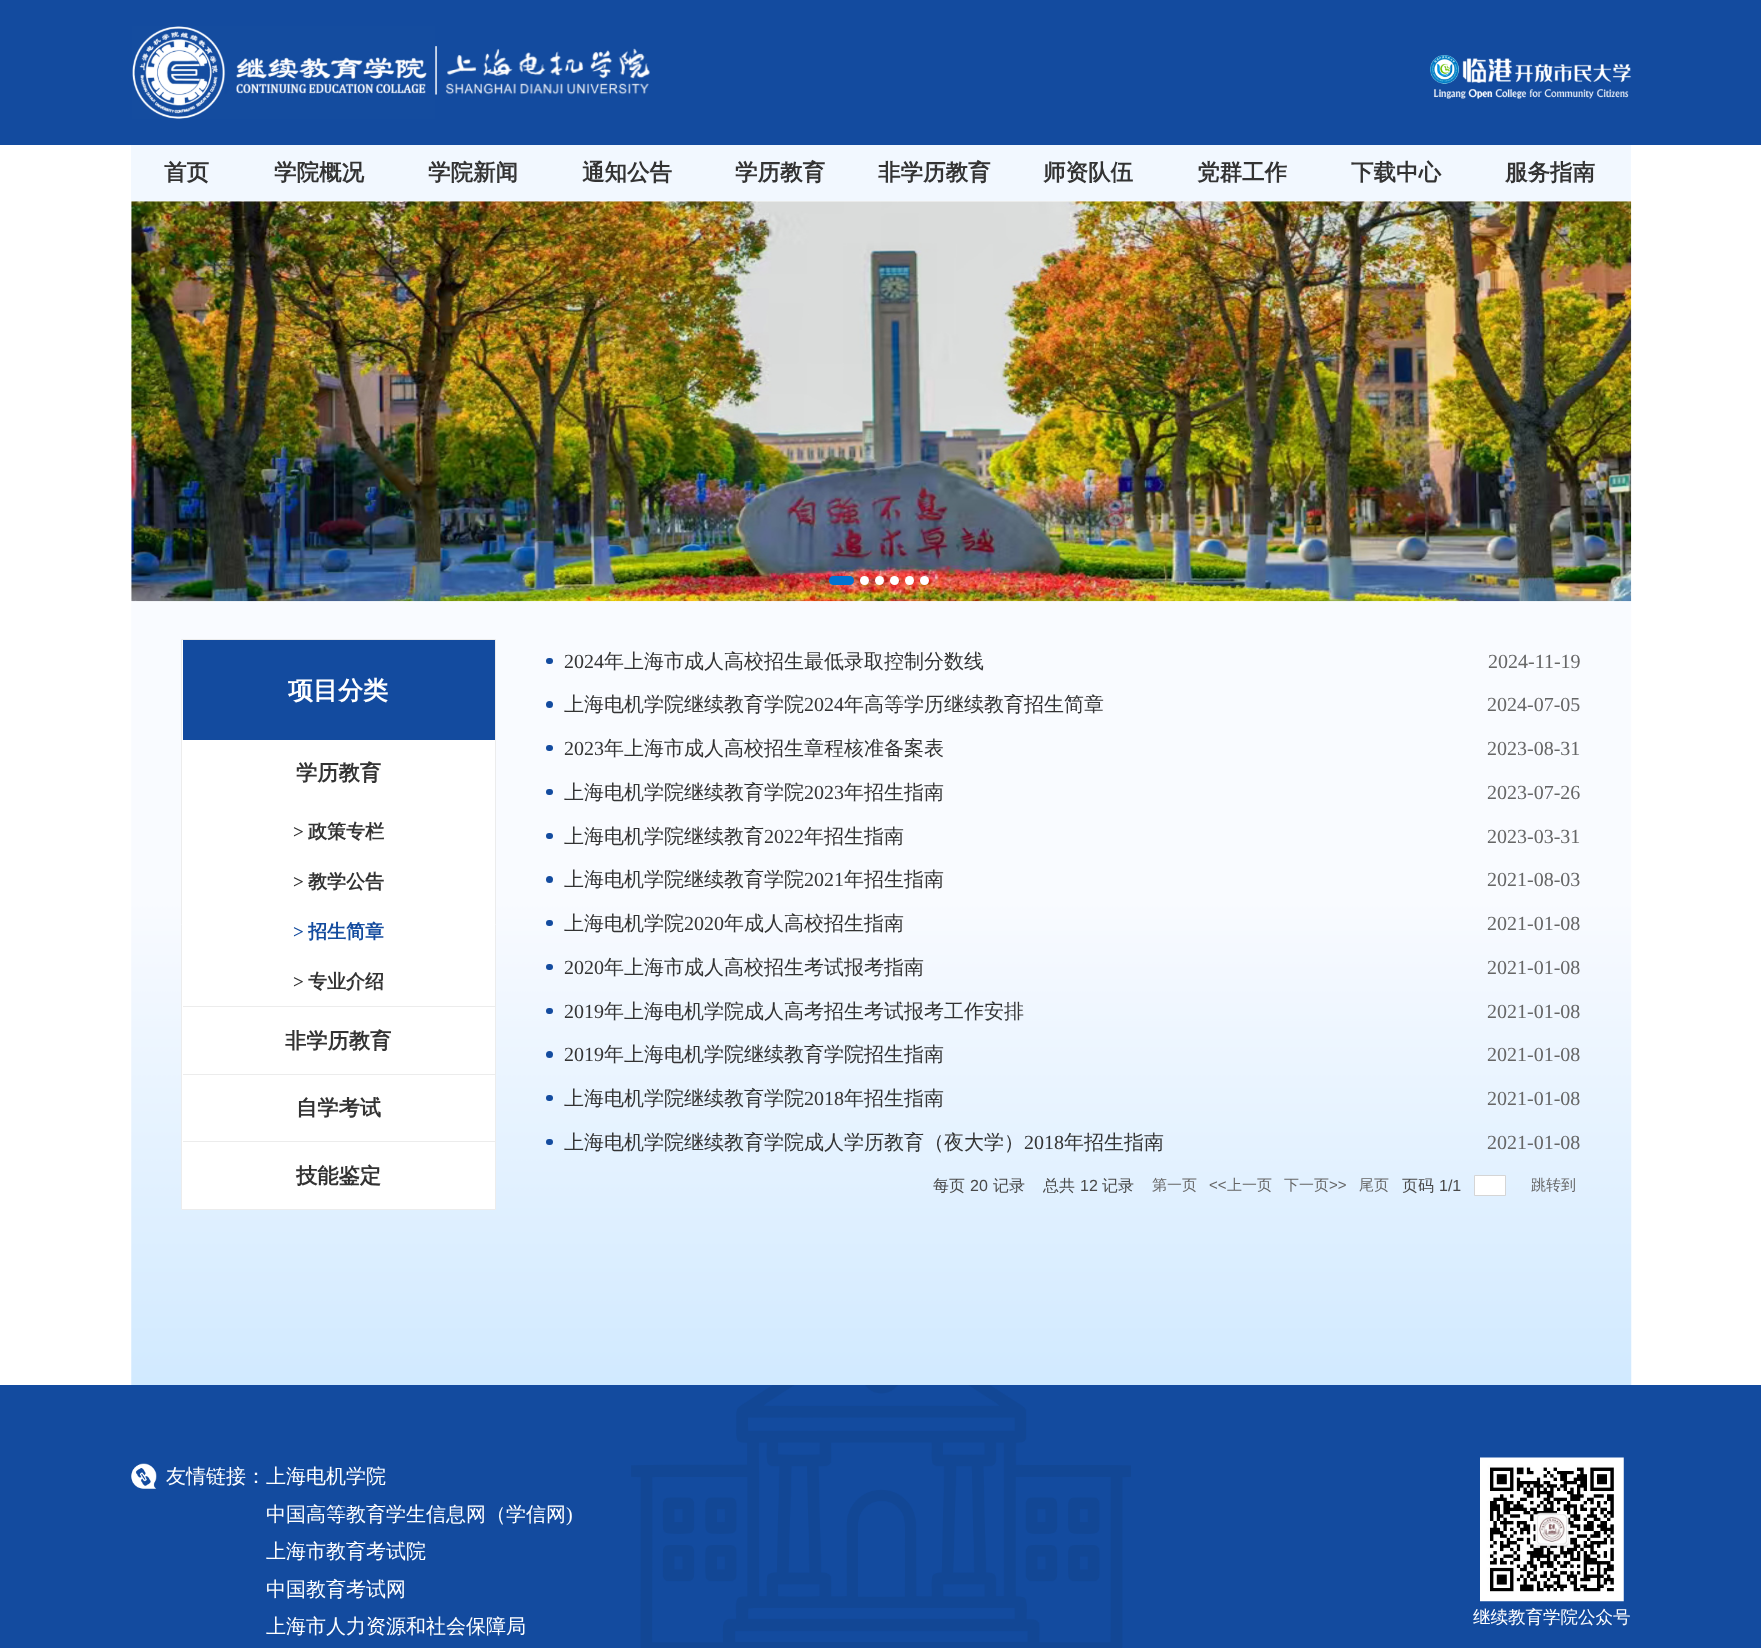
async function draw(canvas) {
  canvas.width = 1761
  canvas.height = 1648
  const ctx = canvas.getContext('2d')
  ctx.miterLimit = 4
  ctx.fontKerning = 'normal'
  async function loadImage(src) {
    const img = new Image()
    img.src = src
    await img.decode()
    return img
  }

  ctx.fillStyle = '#fff'
  ctx.fillRect(0, 0, 1761, 1648)
  ctx.fillStyle = '#134b9f'
  ctx.fillRect(0, 0, 1761, 145)
  ctx.drawImage(await loadImage('image0.png'), 132, 26, 518, 93)
  ctx.drawImage(await loadImage('image1.png'), 1430, 55, 202, 44)
  ctx.fillStyle = '#f2f8ff'
  ctx.fillRect(131, 145, 1500, 56)
  ctx.font = 'bold 22.5px WenQuanYi Zen Hei'
  ctx.fillStyle = '#333'
  ctx.fillText('首页', 164, 180)
  ctx.fillText('学院概况', 274, 180)
  ctx.fillText('学院新闻', 428, 180)
  ctx.fillText('通知公告', 582, 180)
  ctx.fillText('学历教育', 735, 180)
  ctx.fillText('非学历教育', 878, 180)
  ctx.fillText('师资队伍', 1043, 180)
  ctx.fillText('党群工作', 1197, 180)
  ctx.fillText('下载中心', 1351, 180)
  ctx.fillText('服务指南', 1505, 180)
  ctx.drawImage(await loadImage('image3.png'), 131, 601, 1501, 784)
  ctx.drawImage(await loadImage('image2.png'), 131, 201, 1501, 401)
  ctx.fillStyle = '#0073d3'
  ctx.beginPath()
  ctx.roundRect(829, 576, 25, 9, 4.5)
  ctx.fill()
  ctx.fillStyle = '#fff'
  ctx.beginPath()
  ctx.arc(864.5, 580.5, 4.5, 0, 2 * Math.PI)
  ctx.fill()
  ctx.beginPath()
  ctx.arc(879.5, 580.5, 4.5, 0, 2 * Math.PI)
  ctx.fill()
  ctx.beginPath()
  ctx.arc(894.5, 580.5, 4.5, 0, 2 * Math.PI)
  ctx.fill()
  ctx.beginPath()
  ctx.arc(909.5, 580.5, 4.5, 0, 2 * Math.PI)
  ctx.fill()
  ctx.beginPath()
  ctx.arc(924.5, 580.5, 4.5, 0, 2 * Math.PI)
  ctx.fill()
  ctx.beginPath()
  ctx.rect(181.5, 639.5, 314, 570)
  ctx.fill()
  ctx.strokeStyle = '#ececec'
  ctx.stroke()
  ctx.fillStyle = '#134b9f'
  ctx.fillRect(183, 640, 312, 100)
  ctx.font = 'bold 25px WenQuanYi Zen Hei'
  ctx.fillStyle = '#fff'
  ctx.fillText('项目分类', 288, 699)
  ctx.font = 'bold 21.25px WenQuanYi Zen Hei'
  ctx.fillStyle = '#333'
  ctx.fillText('学历教育', 296, 780)
  ctx.font = 'bold 19px Liberation Serif'
  ctx.fillText('>', 293, 838)
  ctx.font = 'bold 19px WenQuanYi Zen Hei'
  ctx.fillText('政策专栏', 308, 838)
  ctx.font = 'bold 19px Liberation Serif'
  ctx.fillText('>', 293, 888)
  ctx.font = 'bold 19px WenQuanYi Zen Hei'
  ctx.fillText('教学公告', 308, 888)
  ctx.font = 'bold 19px Liberation Serif'
  ctx.fillStyle = '#134b9e'
  ctx.fillText('>', 293, 938)
  ctx.font = 'bold 19px WenQuanYi Zen Hei'
  ctx.fillText('招生简章', 308, 938)
  ctx.font = 'bold 19px Liberation Serif'
  ctx.fillStyle = '#333'
  ctx.fillText('>', 293, 988)
  ctx.font = 'bold 19px WenQuanYi Zen Hei'
  ctx.fillText('专业介绍', 308, 988)
  ctx.fillStyle = '#ececec'
  ctx.fillRect(183, 1006, 312, 1)
  ctx.font = 'bold 21.25px WenQuanYi Zen Hei'
  ctx.fillStyle = '#333'
  ctx.fillText('非学历教育', 285, 1048)
  ctx.fillStyle = '#ececec'
  ctx.fillRect(183, 1074, 312, 1)
  ctx.fillStyle = '#333'
  ctx.fillText('自学考试', 296, 1115)
  ctx.fillStyle = '#ececec'
  ctx.fillRect(183, 1141, 312, 1)
  ctx.fillStyle = '#333'
  ctx.fillText('技能鉴定', 296, 1183)
  ctx.fillStyle = '#134b9f'
  ctx.beginPath()
  ctx.roundRect(546, 658, 7, 6, 3)
  ctx.fill()
  ctx.font = '20px Liberation Serif'
  ctx.fillStyle = '#333'
  ctx.fillText('2024', 564, 668)
  ctx.font = '500 20px WenQuanYi Zen Hei'
  ctx.fillText('年上海市成人高校招生最低录取控制分数线', 604, 668)
  ctx.font = '20px Liberation Serif'
  ctx.fillStyle = '#666'
  ctx.fillText('2024-11-19', 1488, 668)
  ctx.fillStyle = '#134b9f'
  ctx.beginPath()
  ctx.arc(549.5, 704.5, 3.5, 0, 2 * Math.PI)
  ctx.fill()
  ctx.font = '500 20px WenQuanYi Zen Hei'
  ctx.fillStyle = '#333'
  ctx.fillText('上海电机学院继续教育学院', 564, 711)
  ctx.font = '20px Liberation Serif'
  ctx.fillText('2024', 804, 711)
  ctx.font = '500 20px WenQuanYi Zen Hei'
  ctx.fillText('年高等学历继续教育招生简章', 844, 711)
  ctx.font = '20px Liberation Serif'
  ctx.fillStyle = '#666'
  ctx.fillText('2024-07-05', 1487, 711)
  ctx.fillStyle = '#134b9f'
  ctx.beginPath()
  ctx.roundRect(546, 745, 7, 6, 3)
  ctx.fill()
  ctx.fillStyle = '#333'
  ctx.fillText('2023', 564, 755)
  ctx.font = '500 20px WenQuanYi Zen Hei'
  ctx.fillText('年上海市成人高校招生章程核准备案表', 604, 755)
  ctx.font = '20px Liberation Serif'
  ctx.fillStyle = '#666'
  ctx.fillText('2023-08-31', 1487, 755)
  ctx.fillStyle = '#134b9f'
  ctx.beginPath()
  ctx.roundRect(546, 789, 7, 6, 3)
  ctx.fill()
  ctx.font = '500 20px WenQuanYi Zen Hei'
  ctx.fillStyle = '#333'
  ctx.fillText('上海电机学院继续教育学院', 564, 799)
  ctx.font = '20px Liberation Serif'
  ctx.fillText('2023', 804, 799)
  ctx.font = '500 20px WenQuanYi Zen Hei'
  ctx.fillText('年招生指南', 844, 799)
  ctx.font = '20px Liberation Serif'
  ctx.fillStyle = '#666'
  ctx.fillText('2023-07-26', 1487, 799)
  ctx.fillStyle = '#134b9f'
  ctx.beginPath()
  ctx.roundRect(546, 833, 7, 6, 3)
  ctx.fill()
  ctx.font = '500 20px WenQuanYi Zen Hei'
  ctx.fillStyle = '#333'
  ctx.fillText('上海电机学院继续教育', 564, 843)
  ctx.font = '20px Liberation Serif'
  ctx.fillText('2022', 764, 843)
  ctx.font = '500 20px WenQuanYi Zen Hei'
  ctx.fillText('年招生指南', 804, 843)
  ctx.font = '20px Liberation Serif'
  ctx.fillStyle = '#666'
  ctx.fillText('2023-03-31', 1487, 843)
  ctx.fillStyle = '#134b9f'
  ctx.beginPath()
  ctx.arc(549.5, 879.5, 3.5, 0, 2 * Math.PI)
  ctx.fill()
  ctx.font = '500 20px WenQuanYi Zen Hei'
  ctx.fillStyle = '#333'
  ctx.fillText('上海电机学院继续教育学院', 564, 886)
  ctx.font = '20px Liberation Serif'
  ctx.fillText('2021', 804, 886)
  ctx.font = '500 20px WenQuanYi Zen Hei'
  ctx.fillText('年招生指南', 844, 886)
  ctx.font = '20px Liberation Serif'
  ctx.fillStyle = '#666'
  ctx.fillText('2021-08-03', 1487, 886)
  ctx.fillStyle = '#134b9f'
  ctx.beginPath()
  ctx.roundRect(546, 920, 7, 6, 3)
  ctx.fill()
  ctx.font = '500 20px WenQuanYi Zen Hei'
  ctx.fillStyle = '#333'
  ctx.fillText('上海电机学院', 564, 930)
  ctx.font = '20px Liberation Serif'
  ctx.fillText('2020', 684, 930)
  ctx.font = '500 20px WenQuanYi Zen Hei'
  ctx.fillText('年成人高校招生指南', 724, 930)
  ctx.font = '20px Liberation Serif'
  ctx.fillStyle = '#666'
  ctx.fillText('2021-01-08', 1487, 930)
  ctx.fillStyle = '#134b9f'
  ctx.beginPath()
  ctx.roundRect(546, 964, 7, 6, 3)
  ctx.fill()
  ctx.fillStyle = '#333'
  ctx.fillText('2020', 564, 974)
  ctx.font = '500 20px WenQuanYi Zen Hei'
  ctx.fillText('年上海市成人高校招生考试报考指南', 604, 974)
  ctx.font = '20px Liberation Serif'
  ctx.fillStyle = '#666'
  ctx.fillText('2021-01-08', 1487, 974)
  ctx.fillStyle = '#134b9f'
  ctx.beginPath()
  ctx.roundRect(546, 1008, 7, 6, 3)
  ctx.fill()
  ctx.fillStyle = '#333'
  ctx.fillText('2019', 564, 1018)
  ctx.font = '500 20px WenQuanYi Zen Hei'
  ctx.fillText('年上海电机学院成人高考招生考试报考工作安排', 604, 1018)
  ctx.font = '20px Liberation Serif'
  ctx.fillStyle = '#666'
  ctx.fillText('2021-01-08', 1487, 1018)
  ctx.fillStyle = '#134b9f'
  ctx.beginPath()
  ctx.arc(549.5, 1054.5, 3.5, 0, 2 * Math.PI)
  ctx.fill()
  ctx.fillStyle = '#333'
  ctx.fillText('2019', 564, 1061)
  ctx.font = '500 20px WenQuanYi Zen Hei'
  ctx.fillText('年上海电机学院继续教育学院招生指南', 604, 1061)
  ctx.font = '20px Liberation Serif'
  ctx.fillStyle = '#666'
  ctx.fillText('2021-01-08', 1487, 1061)
  ctx.fillStyle = '#134b9f'
  ctx.beginPath()
  ctx.roundRect(546, 1095, 7, 6, 3)
  ctx.fill()
  ctx.font = '500 20px WenQuanYi Zen Hei'
  ctx.fillStyle = '#333'
  ctx.fillText('上海电机学院继续教育学院', 564, 1105)
  ctx.font = '20px Liberation Serif'
  ctx.fillText('2018', 804, 1105)
  ctx.font = '500 20px WenQuanYi Zen Hei'
  ctx.fillText('年招生指南', 844, 1105)
  ctx.font = '20px Liberation Serif'
  ctx.fillStyle = '#666'
  ctx.fillText('2021-01-08', 1487, 1105)
  ctx.fillStyle = '#134b9f'
  ctx.beginPath()
  ctx.roundRect(546, 1139, 7, 6, 3)
  ctx.fill()
  ctx.font = '500 20px WenQuanYi Zen Hei'
  ctx.fillStyle = '#333'
  ctx.fillText('上海电机学院继续教育学院成人学历教育（夜大学）', 564, 1149)
  ctx.font = '20px Liberation Serif'
  ctx.fillText('2018', 1024, 1149)
  ctx.font = '500 20px WenQuanYi Zen Hei'
  ctx.fillText('年招生指南', 1064, 1149)
  ctx.font = '20px Liberation Serif'
  ctx.fillStyle = '#666'
  ctx.fillText('2021-01-08', 1487, 1149)
  ctx.font = '500 16px WenQuanYi Zen Hei'
  ctx.fillStyle = '#494949'
  ctx.fillText('每页', 933, 1191)
  ctx.font = '16px Liberation Sans'
  ctx.fillText('20', 970, 1191)
  ctx.font = '500 16px WenQuanYi Zen Hei'
  ctx.fillText('记录', 993, 1191)
  ctx.fillText('总共', 1043, 1191)
  ctx.font = '16px Liberation Sans'
  ctx.fillText('12', 1080, 1191)
  ctx.font = '500 16px WenQuanYi Zen Hei'
  ctx.fillText('记录', 1102, 1191)
  ctx.font = '500 15px WenQuanYi Zen Hei'
  ctx.fillStyle = '#666'
  ctx.fillText('第一页', 1152, 1190)
  ctx.font = '15px Liberation Sans'
  ctx.fillText('<<', 1209, 1190)
  ctx.font = '500 15px WenQuanYi Zen Hei'
  ctx.fillText('上一页', 1227, 1190)
  ctx.fillText('下一页', 1284, 1190)
  ctx.font = '15px Liberation Sans'
  ctx.fillText('>>', 1329, 1190)
  ctx.font = '500 15px WenQuanYi Zen Hei'
  ctx.fillText('尾页', 1359, 1190)
  ctx.font = '500 16px WenQuanYi Zen Hei'
  ctx.fillStyle = '#494949'
  ctx.fillText('页码', 1402, 1191)
  ctx.font = '16px Liberation Sans'
  ctx.fillText('1/1', 1439, 1191)
  ctx.fillStyle = '#fff'
  ctx.beginPath()
  ctx.rect(1474.5, 1175.5, 31, 20)
  ctx.fill()
  ctx.strokeStyle = '#d5d5d5'
  ctx.stroke()
  ctx.font = '500 15px WenQuanYi Zen Hei'
  ctx.fillStyle = '#666'
  ctx.fillText('跳转到', 1531, 1190)
  ctx.fillStyle = '#134b9f'
  ctx.fillRect(0, 1385, 1761, 263)
  ctx.drawImage(await loadImage('image4.png'), 631, 1385, 500, 263)
  ctx.drawImage(await loadImage('image5.png'), 131, 1463, 26, 26)
  ctx.font = '500 20px WenQuanYi Zen Hei'
  ctx.fillStyle = '#fff'
  ctx.fillText('友情链接：上海电机学院', 166, 1483)
  ctx.fillText('中国高等教育学生信息网（学信网', 266, 1521)
  ctx.font = '20px Liberation Serif'
  ctx.fillText(')', 566, 1521)
  ctx.font = '500 20px WenQuanYi Zen Hei'
  ctx.fillText('上海市教育考试院', 266, 1558)
  ctx.fillText('中国教育考试网', 266, 1596)
  ctx.fillText('上海市人力资源和社会保障局', 266, 1633)
  ctx.drawImage(await loadImage('image6.png'), 1480, 1457, 144, 145)
  ctx.font = '500 17.5px WenQuanYi Zen Hei'
  ctx.fillText('继续教育学院公众号', 1473, 1623)
}

draw(document.querySelector('canvas'))
